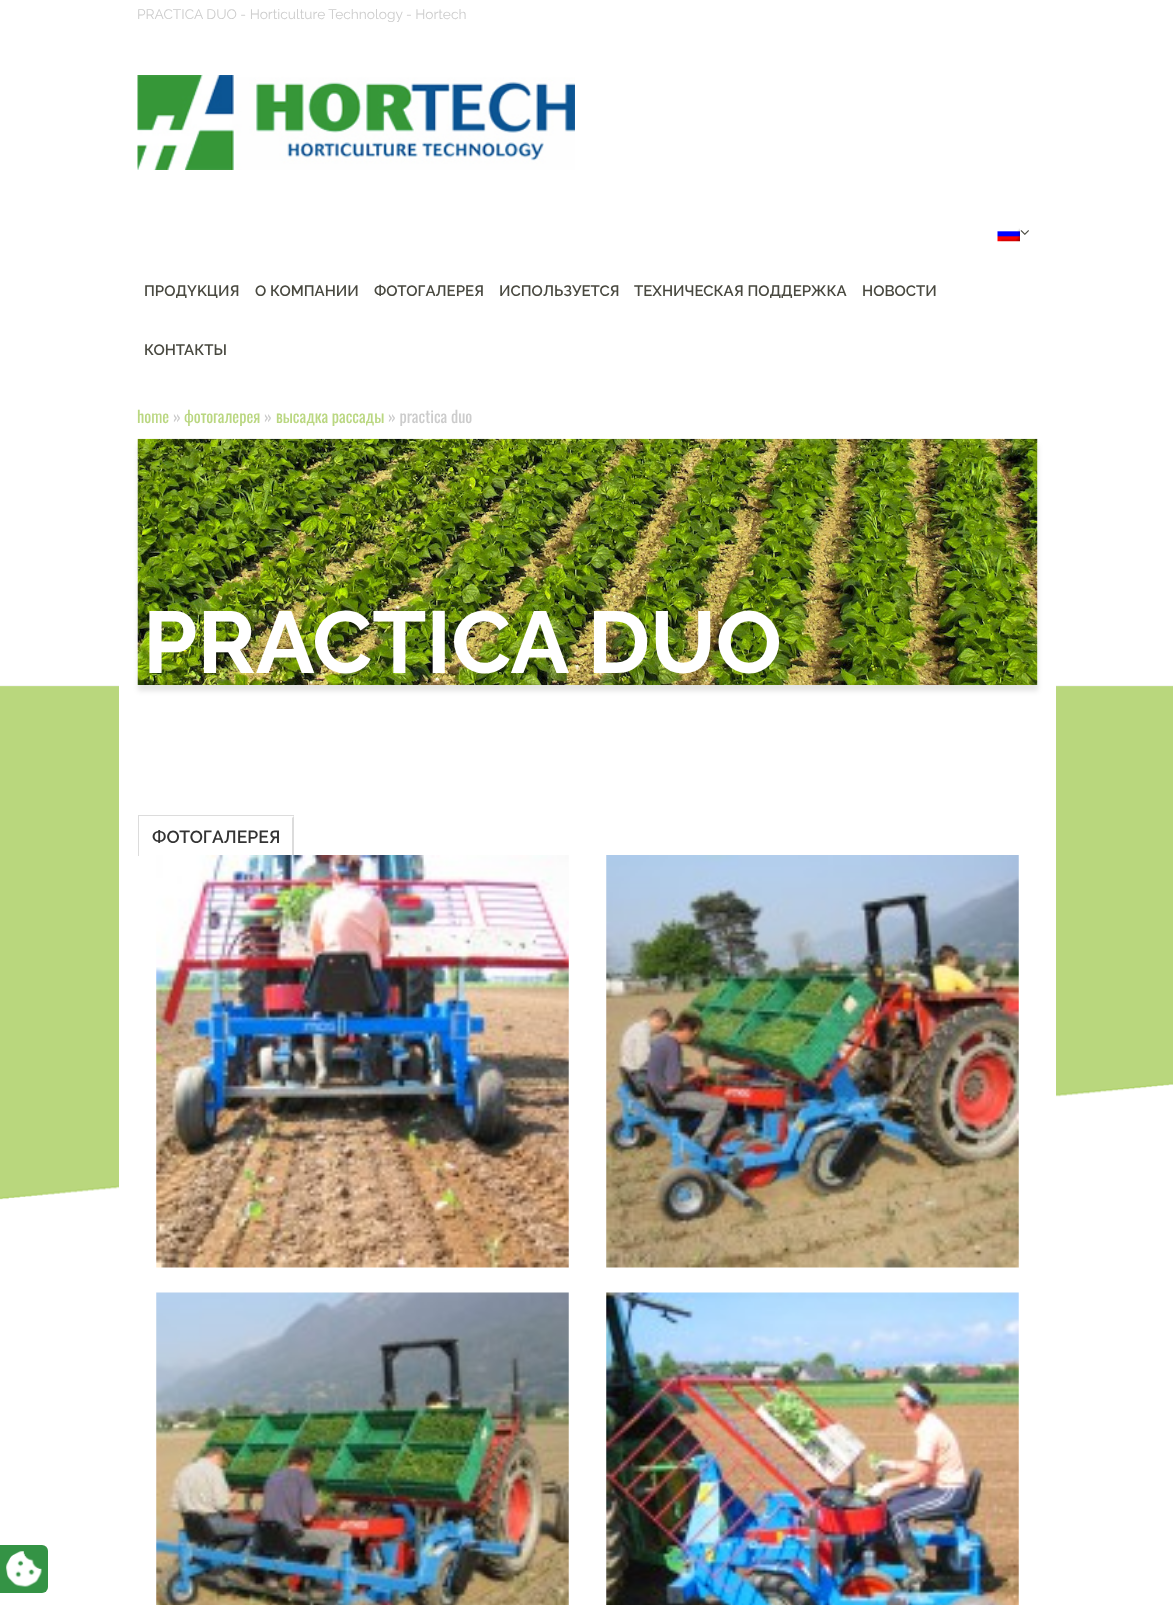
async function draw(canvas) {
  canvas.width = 1173
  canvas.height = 1605
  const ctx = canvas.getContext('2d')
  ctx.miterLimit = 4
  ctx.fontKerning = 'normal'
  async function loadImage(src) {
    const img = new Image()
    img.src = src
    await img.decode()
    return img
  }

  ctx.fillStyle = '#fff'
  ctx.fillRect(0, 0, 1173, 1605)
  ctx.font = '13.75px Raleway'
  ctx.fillStyle = '#ccc'
  ctx.fillText('PRACTICA DUO - Horticulture Technology - Hortech', 137, 19)
  ctx.drawImage(await loadImage('image0.png'), 137, 75, 438, 95)
  ctx.drawImage(await loadImage('image1.png'), 997, 228, 23, 14)
  ctx.drawImage(await loadImage('image2.png'), 1020, 230, 9, 5)
  ctx.font = '600 15px Raleway'
  ctx.fillStyle = '#494940'
  ctx.fillText('ПРОДYKЦИЯ', 144, 296)
  ctx.fillText('О КОМПАНИИ', 255, 296)
  ctx.fillText('ФОТОГАЛЕРЕЯ', 374, 296)
  ctx.fillText('ИСПОЛЬЗУЕТСЯ', 499, 296)
  ctx.fillText('ТЕХНИЧЕСКАЯ ПОДДЕРЖКА', 634, 296)
  ctx.fillText('НОВОСТИ', 862, 296)
  ctx.fillText('КОНТАКТЫ', 144, 355)
  ctx.font = '16.25px Oswald'
  ctx.fillStyle = '#bad781'
  ctx.fillText('home', 137, 423)
  ctx.fillStyle = '#ccc'
  ctx.fillText('»', 173, 423)
  ctx.fillStyle = '#bad781'
  ctx.fillText('фотогалерея', 184, 423)
  ctx.fillStyle = '#ccc'
  ctx.fillText('»', 264, 423)
  ctx.fillStyle = '#bad781'
  ctx.fillText('высадка рассады', 276, 423)
  ctx.fillStyle = '#ccc'
  ctx.fillText('» practica duo', 388, 423)
  ctx.drawImage(await loadImage('image4.png'), 0, 685, 1173, 515)
  ctx.fillStyle = '#fff'
  ctx.fillRect(119, 685, 937, 504)
  ctx.fillStyle = '#0000001a'
  ctx.filter = 'blur(2.5px)'
  ctx.beginPath()
  ctx.rect(138, 445, 900, 246)
  ctx.fill()
  ctx.filter = 'none'
  ctx.fillStyle = '#fff'
  ctx.fillRect(1037, 439, 1, 246)
  ctx.drawImage(await loadImage('image3.png'), 137, 438, 901, 247)
  ctx.font = 'bold 87.5px Raleway'
  ctx.fillText('PRACTICA DUO', 143, 673)
  ctx.fillStyle = '#dcdcdc'
  ctx.fillRect(138, 815, 156, 1)
  ctx.fillRect(138, 815, 1, 41)
  ctx.beginPath()
  ctx.moveTo(294, 816)
  ctx.lineTo(294, 856)
  ctx.lineTo(292, 855)
  ctx.lineTo(292, 818)
  ctx.closePath()
  ctx.fill()
  ctx.font = '600 17.5px Raleway'
  ctx.fillStyle = '#333'
  ctx.fillText('ФОТОГАЛЕРЕЯ', 152, 843)
  ctx.drawImage(await loadImage('image5.png'), 156, 855, 413, 413)
  ctx.drawImage(await loadImage('image6.png'), 606, 855, 413, 413)
  ctx.drawImage(await loadImage('image7.png'), 156, 1292, 413, 313)
  ctx.drawImage(await loadImage('image8.png'), 606, 1292, 413, 313)
  ctx.fillStyle = '#349345'
  ctx.beginPath()
  ctx.roundRect(0, 1545, 48, 48, [0, 6, 6, 0])
  ctx.fill()
  ctx.drawImage(await loadImage('image9.png'), 6, 1551, 36, 36)
}

draw(document.querySelector('canvas'))
